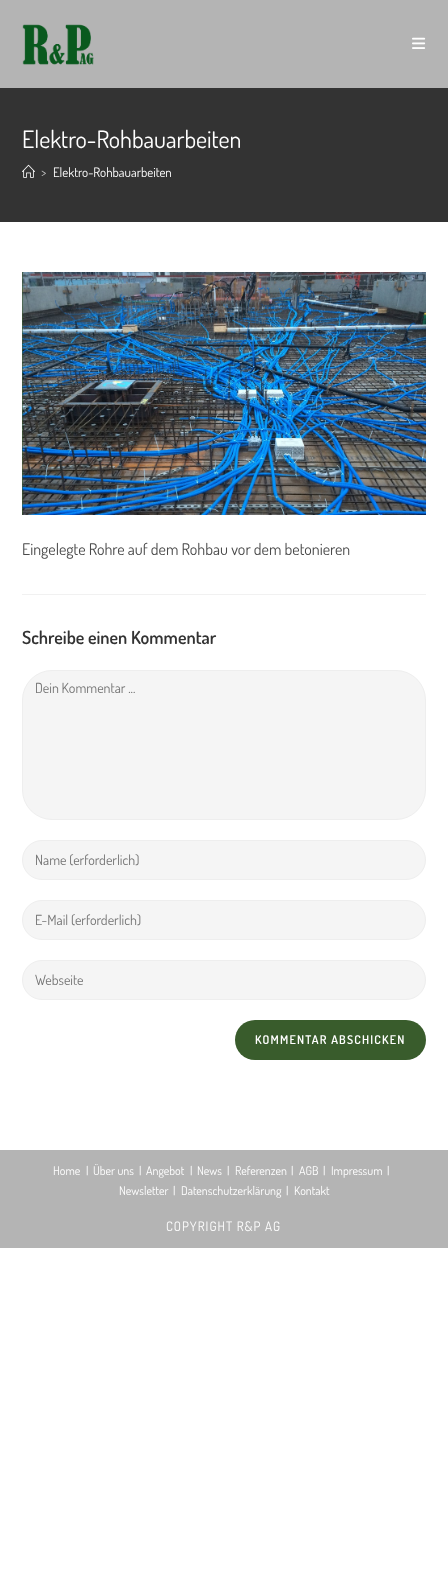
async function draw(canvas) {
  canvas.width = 448
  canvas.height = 1569
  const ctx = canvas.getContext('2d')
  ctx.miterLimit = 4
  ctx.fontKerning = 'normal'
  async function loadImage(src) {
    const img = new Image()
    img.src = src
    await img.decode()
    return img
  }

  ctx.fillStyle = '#fff'
  ctx.fillRect(0, 0, 448, 1569)
  ctx.fillStyle = '#b4b4b4'
  ctx.fillRect(0, 0, 448, 88)
  ctx.drawImage(await loadImage('image0.png'), 22, 24, 72, 41)
  ctx.drawImage(await loadImage('image1.png'), 412, 37, 14, 12)
  ctx.fillStyle = '#333'
  ctx.fillRect(0, 88, 448, 134)
  ctx.font = '24px Dosis'
  ctx.fillStyle = '#fff'
  ctx.fillText('Elektro-Rohbauarbeiten', 22, 148)
  ctx.drawImage(await loadImage('image2.png'), 22, 164, 13, 14)
  ctx.font = '13px Dosis'
  ctx.fillStyle = '#c6c6c6'
  ctx.fillText('>', 41, 177)
  ctx.fillStyle = '#fff'
  ctx.fillText('Elektro-Rohbauarbeiten', 53, 177)
  ctx.drawImage(await loadImage('image3.png'), 22, 272, 404, 243)
  ctx.font = '16px Dosis'
  ctx.fillStyle = '#4a4a4a'
  ctx.fillText('Eingelegte Rohre auf dem Rohbau vor dem betonieren', 22, 555)
  ctx.fillStyle = '#f1f1f1'
  ctx.fillRect(22, 594, 404, 1)
  ctx.font = '600 18px Dosis'
  ctx.fillStyle = '#333'
  ctx.fillText('Schreibe einen Kommentar', 22, 644)
  ctx.fillStyle = '#f5f5f5'
  ctx.beginPath()
  ctx.roundRect(22.5, 670.5, 403, 149, 29.5)
  ctx.fill()
  ctx.strokeStyle = '#eee'
  ctx.stroke()
  ctx.font = '14px Dosis'
  ctx.fillStyle = '#757575'
  ctx.fillText('Dein Kommentar ...', 35, 693)
  ctx.fillStyle = '#f5f5f5'
  ctx.beginPath()
  ctx.roundRect(22.5, 840.5, 403, 39, 19.5)
  ctx.fill()
  ctx.stroke()
  ctx.fillStyle = '#757575'
  ctx.fillText('Name (erforderlich)', 35, 865)
  ctx.fillStyle = '#f5f5f5'
  ctx.beginPath()
  ctx.roundRect(22.5, 900.5, 403, 39, 19.5)
  ctx.fill()
  ctx.stroke()
  ctx.fillStyle = '#757575'
  ctx.fillText('E-Mail (erforderlich)', 35, 925)
  ctx.fillStyle = '#f5f5f5'
  ctx.beginPath()
  ctx.roundRect(22.5, 960.5, 403, 39, 19.5)
  ctx.fill()
  ctx.stroke()
  ctx.fillStyle = '#757575'
  ctx.fillText('Webseite', 35, 985)
  ctx.fillStyle = '#395c2c'
  ctx.beginPath()
  ctx.roundRect(235, 1020, 191, 40, 20)
  ctx.fill()
  ctx.letterSpacing = '1.2px'
  ctx.font = '600 12px Dosis'
  ctx.fillStyle = '#fff'
  ctx.fillText('KOMMENTAR ABSCHICKEN', 255, 1044)
  ctx.fillStyle = '#b4b4b4'
  ctx.fillRect(0, 1150, 448, 98)
  ctx.letterSpacing = '0px'
  ctx.font = '12px Dosis'
  ctx.fillStyle = '#fff'
  ctx.fillText('Home', 53, 1175)
  ctx.fillText('|', 86, 1175)
  ctx.fillText('Über uns', 93, 1175)
  ctx.fillText('|', 139, 1175)
  ctx.fillText('Angebot', 146, 1175)
  ctx.fillText('|', 190, 1175)
  ctx.fillText('News', 197, 1175)
  ctx.fillText('|', 227, 1175)
  ctx.fillText('Referenzen', 235, 1175)
  ctx.fillText('|', 291, 1175)
  ctx.fillText('AGB', 299, 1175)
  ctx.fillText('|', 323, 1175)
  ctx.fillText('Impressum', 331, 1175)
  ctx.fillText('|', 387, 1175)
  ctx.fillText('Newsletter', 119, 1195)
  ctx.fillText('|', 173, 1195)
  ctx.fillText('Datenschutzerklärung', 181, 1195)
  ctx.fillText('|', 286, 1195)
  ctx.fillText('Kontakt', 294, 1195)
  ctx.letterSpacing = '1px'
  ctx.font = '13px Dosis'
  ctx.fillText('COPYRIGHT R&P AG', 166, 1231)
}

draw(document.querySelector('canvas'))
